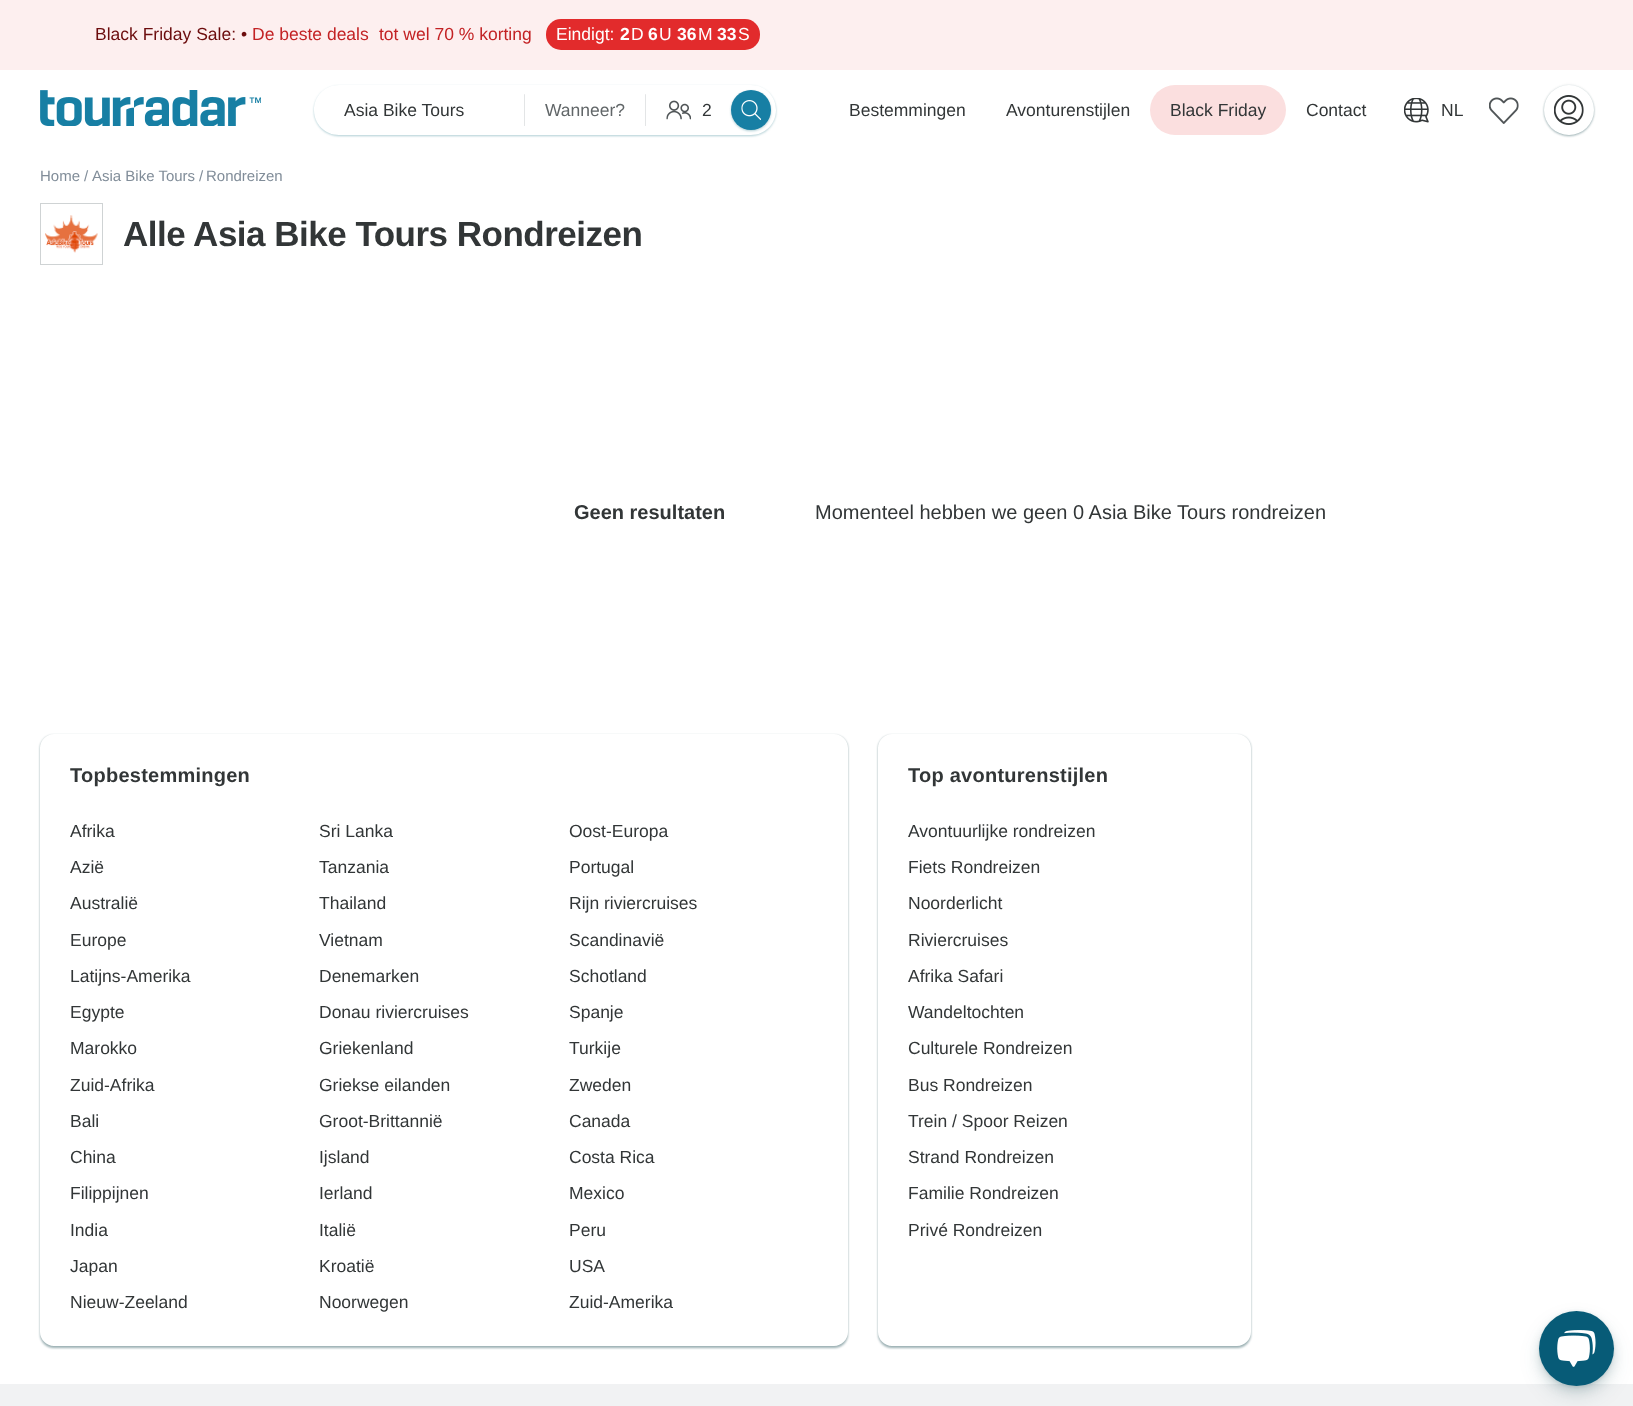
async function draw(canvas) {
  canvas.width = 1633
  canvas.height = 1406
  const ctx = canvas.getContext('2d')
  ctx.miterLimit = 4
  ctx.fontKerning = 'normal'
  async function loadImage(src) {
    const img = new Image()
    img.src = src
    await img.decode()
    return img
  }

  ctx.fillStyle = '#fff'
  ctx.fillRect(0, 0, 1633, 1406)
  ctx.fillStyle = '#fdefef'
  ctx.fillRect(0, 0, 1633, 70)
  ctx.font = '17.5px Liberation Sans'
  ctx.fillStyle = '#6c0c0d'
  ctx.fillText('Black Friday Sale: •', 95, 40)
  ctx.fillStyle = '#c32224'
  ctx.fillText('De beste deals', 252, 40)
  ctx.fillText('tot wel 70 % korting', 379, 40)
  ctx.fillStyle = '#e22b2c'
  ctx.beginPath()
  ctx.roundRect(546, 19, 214, 31, 15)
  ctx.fill()
  ctx.fillStyle = '#fff'
  ctx.fillText('Eindigt:', 556, 40)
  ctx.font = 'bold 17.5px Liberation Sans'
  ctx.fillText('2', 620, 40)
  ctx.font = '17.5px Liberation Sans'
  ctx.fillText('D', 631, 40)
  ctx.font = 'bold 17.5px Liberation Sans'
  ctx.fillText('6', 648, 40)
  ctx.font = '17.5px Liberation Sans'
  ctx.fillText('U', 659, 40)
  ctx.font = 'bold 17.5px Liberation Sans'
  ctx.fillText('36', 677, 40)
  ctx.font = '17.5px Liberation Sans'
  ctx.fillText('M', 698, 40)
  ctx.font = 'bold 17.5px Liberation Sans'
  ctx.fillText('33', 717, 40)
  ctx.font = '17.5px Liberation Sans'
  ctx.fillText('S', 738, 40)
  ctx.drawImage(await loadImage('image0.png'), 40, 90, 221, 36)
  ctx.save()
  ctx.beginPath()
  ctx.moveTo(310, 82)
  ctx.lineTo(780, 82)
  ctx.lineTo(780, 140)
  ctx.lineTo(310, 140)
  ctx.closePath()
  ctx.moveTo(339, 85)
  ctx.lineTo(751, 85)
  ctx.bezierCurveTo(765, 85, 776, 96, 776, 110)
  ctx.bezierCurveTo(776, 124, 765, 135, 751, 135)
  ctx.lineTo(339, 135)
  ctx.bezierCurveTo(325, 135, 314, 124, 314, 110)
  ctx.bezierCurveTo(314, 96, 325, 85, 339, 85)
  ctx.closePath()
  ctx.clip('evenodd')
  ctx.fillStyle = '#35819166'
  ctx.filter = 'blur(1px)'
  ctx.beginPath()
  ctx.roundRect(314, 86, 462, 50, 25)
  ctx.fill()
  ctx.filter = 'none'
  ctx.restore()
  ctx.fillStyle = '#323637'
  ctx.fillText('Asia Bike Tours', 344, 116)
  ctx.fillStyle = '#e3e5e6'
  ctx.beginPath()
  ctx.roundRect(524, 94, 1, 32, 0.5)
  ctx.fill()
  ctx.fillStyle = '#616668'
  ctx.fillText('Wanneer?', 545, 116)
  ctx.fillStyle = '#e3e5e6'
  ctx.beginPath()
  ctx.roundRect(645, 94, 1, 32, 0.5)
  ctx.fill()
  ctx.drawImage(await loadImage('image1.png'), 666, 100, 25, 20)
  ctx.fillStyle = '#323637'
  ctx.fillText('2', 702, 116)
  ctx.fillStyle = '#35819166'
  ctx.filter = 'blur(1px)'
  ctx.beginPath()
  ctx.roundRect(731, 91, 40, 40, 20)
  ctx.fill()
  ctx.filter = 'none'
  ctx.fillStyle = '#177fa4'
  ctx.beginPath()
  ctx.arc(751, 110, 20, 0, 2 * Math.PI)
  ctx.fill()
  ctx.drawImage(await loadImage('image2.png'), 741, 100, 20, 20)
  ctx.fillStyle = '#323637'
  ctx.fillText('Bestemmingen', 849, 116)
  ctx.fillText('Avonturenstijlen', 1006, 116)
  ctx.fillStyle = '#fbdfdf'
  ctx.beginPath()
  ctx.roundRect(1150, 85, 136, 50, 25)
  ctx.fill()
  ctx.fillStyle = '#323637'
  ctx.fillText('Black Friday', 1170, 116)
  ctx.fillText('Contact', 1306, 116)
  ctx.drawImage(await loadImage('image3.png'), 1404, 98, 25, 25)
  ctx.fillText('NL', 1441, 116)
  ctx.drawImage(await loadImage('image4.png'), 1489, 97, 30, 27)
  ctx.fillStyle = '#03363f0a'
  ctx.filter = 'blur(1px)'
  ctx.beginPath()
  ctx.roundRect(1544, 84, 50, 50, 25)
  ctx.fill()
  ctx.filter = 'none'
  ctx.fillStyle = '#03363f66'
  ctx.filter = 'blur(1px)'
  ctx.beginPath()
  ctx.roundRect(1544, 86, 50, 50, 25)
  ctx.fill()
  ctx.filter = 'none'
  ctx.fillStyle = '#fff'
  ctx.beginPath()
  ctx.arc(1569, 110, 25, 0, 2 * Math.PI)
  ctx.fill()
  ctx.drawImage(await loadImage('image5.png'), 1554, 95, 30, 30)
  ctx.font = '15px Liberation Sans'
  ctx.fillStyle = '#818d99'
  ctx.fillText('Home', 40, 181)
  ctx.fillText('/', 84, 181)
  ctx.fillText('Asia Bike Tours', 92, 181)
  ctx.fillText('/', 199, 181)
  ctx.fillText('Rondreizen', 206, 181)
  ctx.strokeStyle = '#cfd3d4'
  ctx.strokeRect(40.5, 203.5, 62, 61)
  ctx.drawImage(await loadImage('image6.png'), 45, 215, 53, 38)
  ctx.letterSpacing = '-0.5px'
  ctx.font = 'bold 35px Liberation Sans'
  ctx.fillStyle = '#323637'
  ctx.fillText('Alle Asia Bike Tours Rondreizen', 123, 246)
  ctx.letterSpacing = '0px'
  ctx.font = 'bold 20px Liberation Sans'
  ctx.fillText('Geen resultaten', 574, 519)
  ctx.font = '20px Liberation Sans'
  ctx.fillText('Momenteel hebben we geen 0 Asia Bike Tours rondreizen', 815, 519)
  ctx.save()
  ctx.beginPath()
  ctx.moveTo(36, 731)
  ctx.lineTo(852, 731)
  ctx.lineTo(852, 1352)
  ctx.lineTo(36, 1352)
  ctx.closePath()
  ctx.moveTo(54, 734)
  ctx.lineTo(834, 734)
  ctx.bezierCurveTo(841.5, 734, 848, 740.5, 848, 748)
  ctx.lineTo(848, 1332)
  ctx.bezierCurveTo(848, 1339.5, 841.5, 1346, 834, 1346)
  ctx.lineTo(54, 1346)
  ctx.bezierCurveTo(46.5, 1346, 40, 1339.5, 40, 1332)
  ctx.lineTo(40, 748)
  ctx.bezierCurveTo(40, 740.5, 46.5, 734, 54, 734)
  ctx.closePath()
  ctx.clip('evenodd')
  ctx.fillStyle = '#03363f66'
  ctx.filter = 'blur(1px)'
  ctx.beginPath()
  ctx.roundRect(40, 735, 808, 613, 14)
  ctx.fill()
  ctx.filter = 'none'
  ctx.restore()
  ctx.letterSpacing = '0.25px'
  ctx.font = 'bold 20px Liberation Sans'
  ctx.fillText('Topbestemmingen', 70, 782)
  ctx.letterSpacing = '0px'
  ctx.font = '17.5px Liberation Sans'
  ctx.fillText('Afrika', 70, 837)
  ctx.fillText('Azië', 70, 873)
  ctx.fillText('Australië', 70, 909)
  ctx.fillText('Europe', 70, 946)
  ctx.fillText('Latijns-Amerika', 70, 982)
  ctx.fillText('Egypte', 70, 1018)
  ctx.fillText('Marokko', 70, 1054)
  ctx.fillText('Zuid-Afrika', 70, 1091)
  ctx.fillText('Bali', 70, 1127)
  ctx.fillText('China', 70, 1163)
  ctx.fillText('Filippijnen', 70, 1199)
  ctx.fillText('India', 70, 1236)
  ctx.fillText('Japan', 70, 1272)
  ctx.fillText('Nieuw-Zeeland', 70, 1308)
  ctx.fillText('Sri Lanka', 319, 837)
  ctx.fillText('Tanzania', 319, 873)
  ctx.fillText('Thailand', 319, 909)
  ctx.fillText('Vietnam', 319, 946)
  ctx.fillText('Denemarken', 319, 982)
  ctx.fillText('Donau riviercruises', 319, 1018)
  ctx.fillText('Griekenland', 319, 1054)
  ctx.fillText('Griekse eilanden', 319, 1091)
  ctx.fillText('Groot-Brittannië', 319, 1127)
  ctx.fillText('Ijsland', 319, 1163)
  ctx.fillText('Ierland', 319, 1199)
  ctx.fillText('Italië', 319, 1236)
  ctx.fillText('Kroatië', 319, 1272)
  ctx.fillText('Noorwegen', 319, 1308)
  ctx.fillText('Oost-Europa', 569, 837)
  ctx.fillText('Portugal', 569, 873)
  ctx.fillText('Rijn riviercruises', 569, 909)
  ctx.fillText('Scandinavië', 569, 946)
  ctx.fillText('Schotland', 569, 982)
  ctx.fillText('Spanje', 569, 1018)
  ctx.fillText('Turkije', 569, 1054)
  ctx.fillText('Zweden', 569, 1091)
  ctx.fillText('Canada', 569, 1127)
  ctx.fillText('Costa Rica', 569, 1163)
  ctx.fillText('Mexico', 569, 1199)
  ctx.fillText('Peru', 569, 1236)
  ctx.fillText('USA', 569, 1272)
  ctx.fillText('Zuid-Amerika', 569, 1308)
  ctx.save()
  ctx.beginPath()
  ctx.moveTo(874, 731)
  ctx.lineTo(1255, 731)
  ctx.lineTo(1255, 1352)
  ctx.lineTo(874, 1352)
  ctx.closePath()
  ctx.moveTo(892, 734)
  ctx.lineTo(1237, 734)
  ctx.bezierCurveTo(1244.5, 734, 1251, 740.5, 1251, 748)
  ctx.lineTo(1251, 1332)
  ctx.bezierCurveTo(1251, 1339.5, 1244.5, 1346, 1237, 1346)
  ctx.lineTo(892, 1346)
  ctx.bezierCurveTo(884.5, 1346, 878, 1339.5, 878, 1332)
  ctx.lineTo(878, 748)
  ctx.bezierCurveTo(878, 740.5, 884.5, 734, 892, 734)
  ctx.closePath()
  ctx.clip('evenodd')
  ctx.fillStyle = '#03363f66'
  ctx.filter = 'blur(1px)'
  ctx.beginPath()
  ctx.roundRect(878, 735, 373, 613, 14)
  ctx.fill()
  ctx.filter = 'none'
  ctx.restore()
  ctx.letterSpacing = '0.25px'
  ctx.font = 'bold 20px Liberation Sans'
  ctx.fillText('Top avonturenstijlen', 908, 782)
  ctx.letterSpacing = '0px'
  ctx.font = '17.5px Liberation Sans'
  ctx.fillText('Avontuurlijke rondreizen', 908, 837)
  ctx.fillText('Fiets Rondreizen', 908, 873)
  ctx.fillText('Noorderlicht', 908, 909)
  ctx.fillText('Riviercruises', 908, 946)
  ctx.fillText('Afrika Safari', 908, 982)
  ctx.fillText('Wandeltochten', 908, 1018)
  ctx.fillText('Culturele Rondreizen', 908, 1054)
  ctx.fillText('Bus Rondreizen', 908, 1091)
  ctx.fillText('Trein / Spoor Reizen', 908, 1127)
  ctx.fillText('Strand Rondreizen', 908, 1163)
  ctx.fillText('Familie Rondreizen', 908, 1199)
  ctx.fillText('Privé Rondreizen', 908, 1236)
  ctx.fillStyle = '#f1f2f3'
  ctx.fillRect(0, 1384, 1633, 22)
  ctx.fillStyle = '#03363f0a'
  ctx.filter = 'blur(1px)'
  ctx.beginPath()
  ctx.roundRect(1539, 1310, 75, 75, 37.5)
  ctx.fill()
  ctx.filter = 'none'
  ctx.fillStyle = '#03363f14'
  ctx.filter = 'blur(1px)'
  ctx.beginPath()
  ctx.roundRect(1539, 1313, 75, 75, 37.5)
  ctx.fill()
  ctx.filter = 'none'
  ctx.fillStyle = '#03363f1f'
  ctx.filter = 'blur(5px)'
  ctx.beginPath()
  ctx.roundRect(1539, 1316, 75, 75, 37.5)
  ctx.fill()
  ctx.filter = 'none'
  ctx.filter = 'blur(10px)'
  ctx.beginPath()
  ctx.roundRect(1539, 1321, 75, 75, 37.5)
  ctx.fill()
  ctx.filter = 'none'
  ctx.fillStyle = '#075b77'
  ctx.beginPath()
  ctx.arc(1576.5, 1348.5, 37.5, 0, 2 * Math.PI)
  ctx.fill()
  ctx.drawImage(await loadImage('image7.png'), 1557, 1330, 39, 37)
}

draw(document.querySelector('canvas'))
